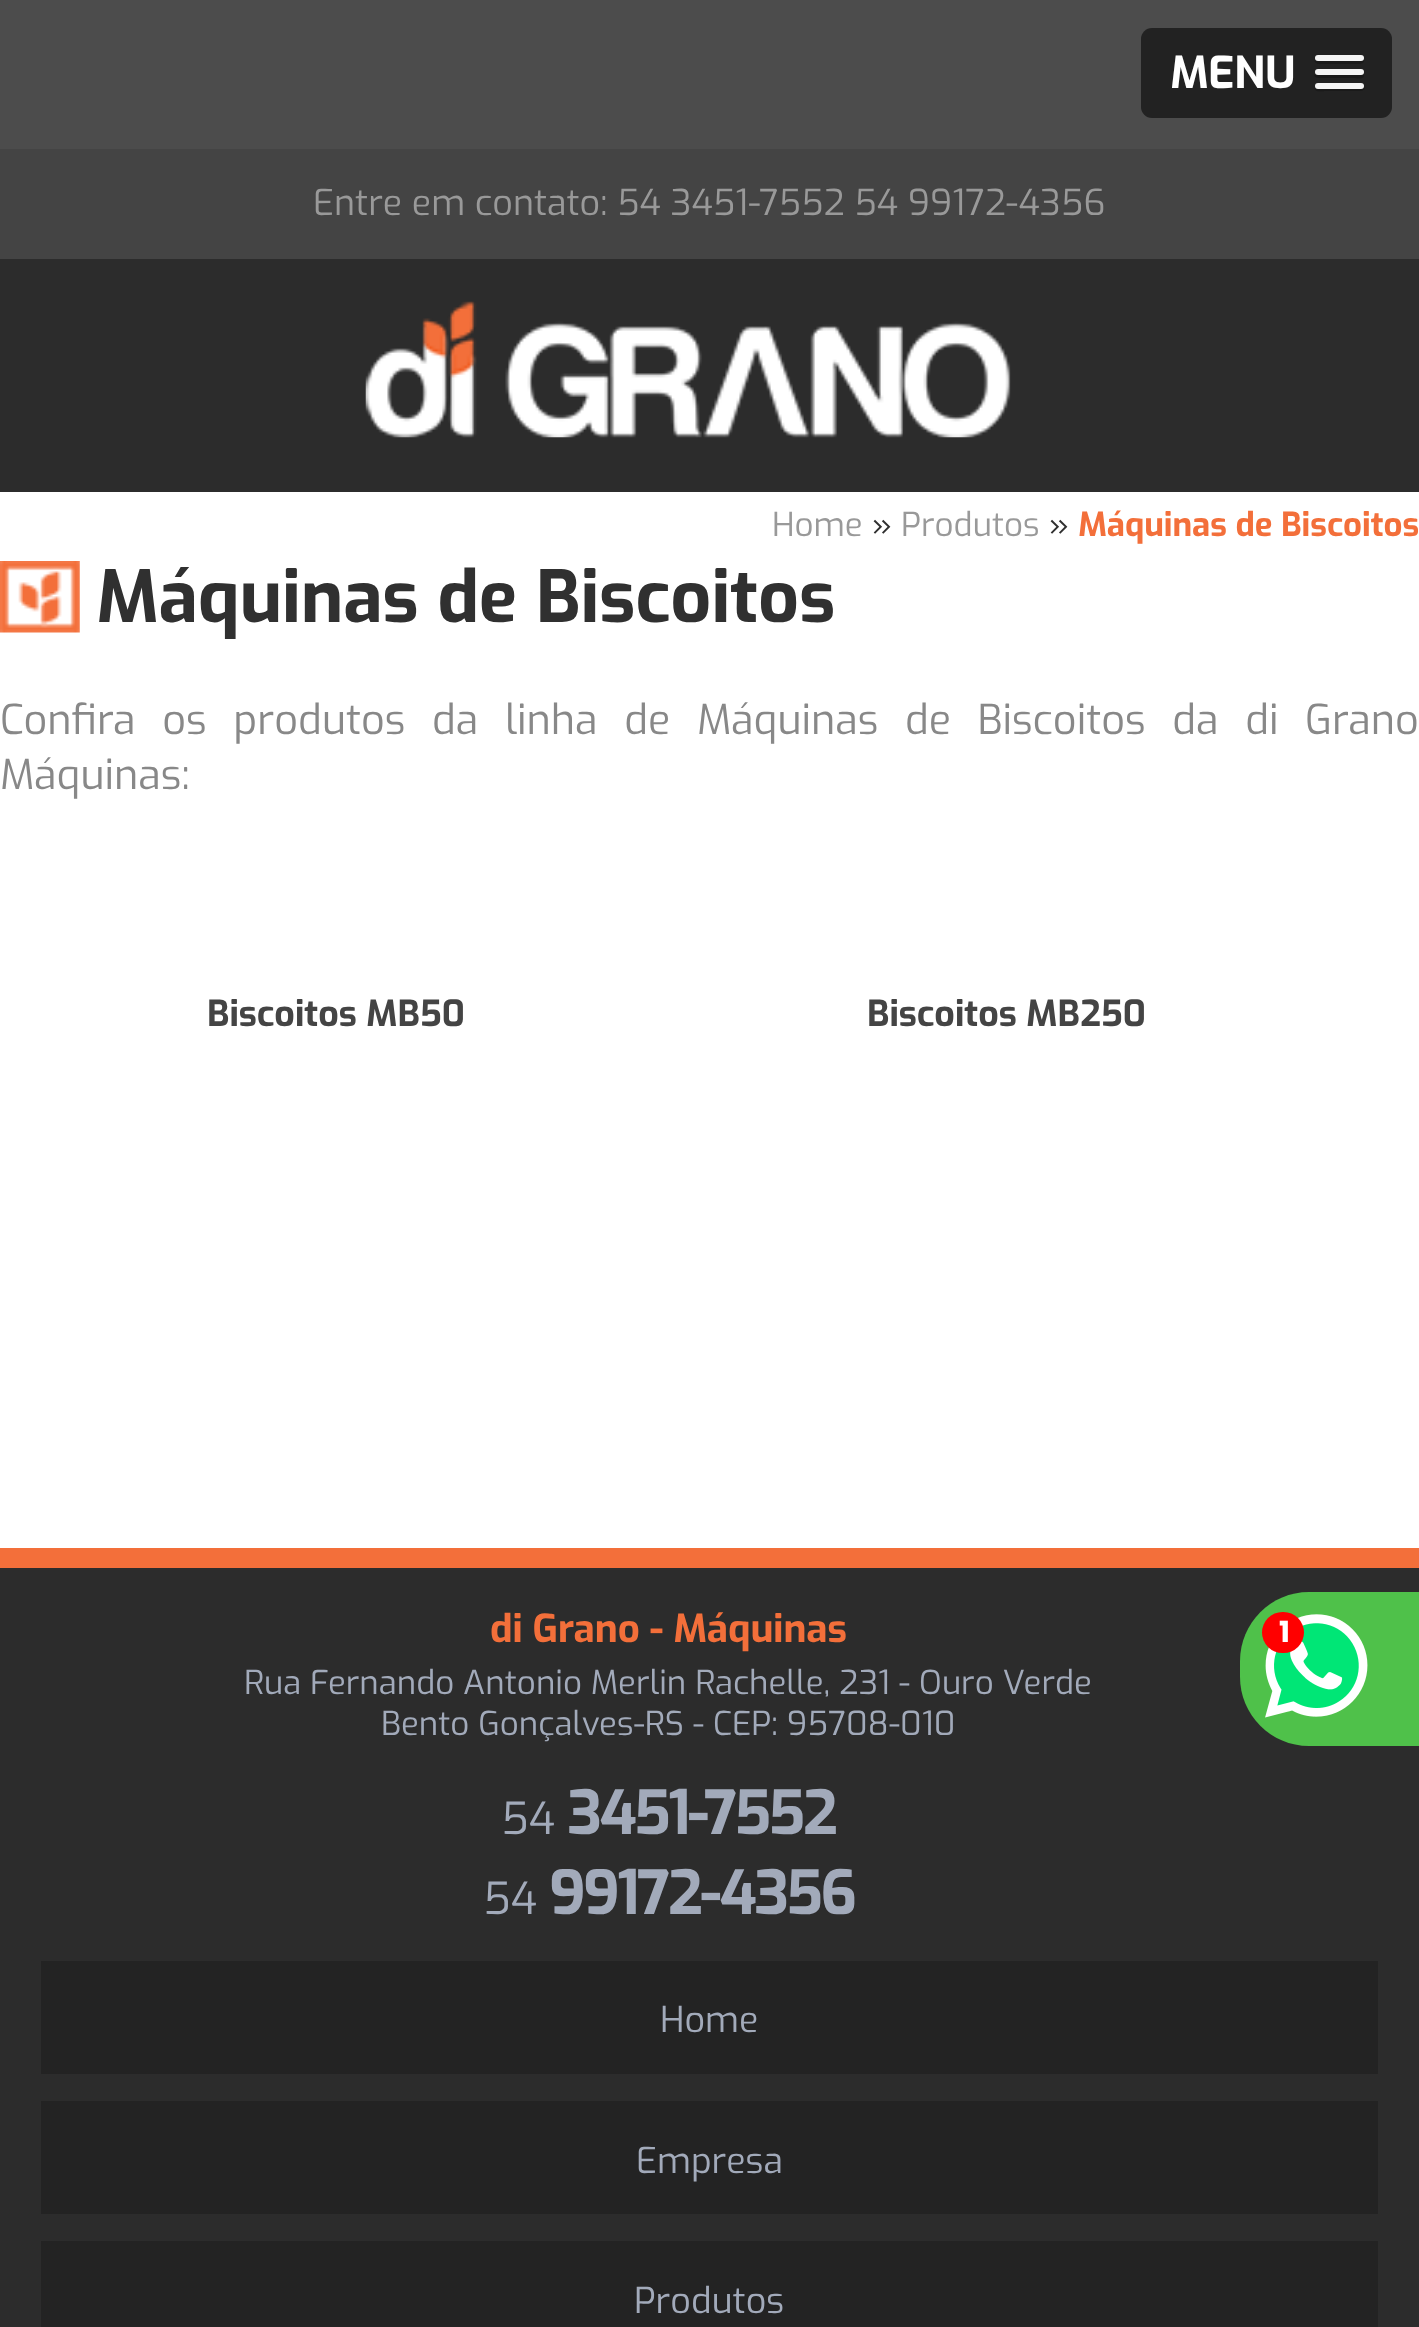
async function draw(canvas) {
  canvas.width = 1419
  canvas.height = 2327
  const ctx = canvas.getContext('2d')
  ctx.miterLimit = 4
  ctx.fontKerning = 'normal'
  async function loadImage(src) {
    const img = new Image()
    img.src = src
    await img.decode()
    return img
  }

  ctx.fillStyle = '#fff'
  ctx.fillRect(0, 0, 1419, 2327)
  ctx.fillStyle = '#4c4c4c'
  ctx.fillRect(0, 0, 1419, 149)
  ctx.fillStyle = '#222'
  ctx.beginPath()
  ctx.roundRect(1141, 28, 251, 90, 11)
  ctx.fill()
  ctx.font = 'bold 44px Exo'
  ctx.fillStyle = '#fff'
  ctx.fillText('MENU', 1170, 88)
  ctx.fillStyle = '#1a1a1a'
  ctx.beginPath()
  ctx.moveTo(1315, 60)
  ctx.bezierCurveTo(1313, 65, 1324, 64, 1325, 64)
  ctx.lineTo(1354, 64)
  ctx.bezierCurveTo(1354, 64, 1368, 65, 1363, 59)
  ctx.lineTo(1362, 60)
  ctx.lineTo(1317, 60)
  ctx.closePath()
  ctx.fill()
  ctx.fillStyle = '#f5f5f5'
  ctx.beginPath()
  ctx.roundRect(1315, 55, 49, 6, 3)
  ctx.fill()
  ctx.fillStyle = '#1a1a1a'
  ctx.beginPath()
  ctx.moveTo(1315, 74)
  ctx.bezierCurveTo(1312, 79, 1324, 78, 1325, 78)
  ctx.lineTo(1354, 78)
  ctx.bezierCurveTo(1356, 78, 1363, 80, 1364, 76)
  ctx.lineTo(1363, 73)
  ctx.lineTo(1362, 74)
  ctx.bezierCurveTo(1357, 75, 1317, 75, 1315, 74)
  ctx.closePath()
  ctx.fill()
  ctx.fillStyle = '#f5f5f5'
  ctx.beginPath()
  ctx.roundRect(1315, 69, 49, 6, 3)
  ctx.fill()
  ctx.fillStyle = '#1a1a1a'
  ctx.beginPath()
  ctx.moveTo(1315, 87)
  ctx.bezierCurveTo(1313, 93, 1324, 91, 1325, 91)
  ctx.lineTo(1354, 91)
  ctx.bezierCurveTo(1355, 91, 1367, 92, 1364, 87)
  ctx.lineTo(1362, 88)
  ctx.lineTo(1317, 88)
  ctx.closePath()
  ctx.fill()
  ctx.fillStyle = '#f5f5f5'
  ctx.beginPath()
  ctx.roundRect(1315, 83, 49, 6, 3)
  ctx.fill()
  ctx.fillStyle = '#2c2c2c'
  ctx.fillRect(0, 259, 1419, 233)
  ctx.fillStyle = '#444'
  ctx.fillRect(0, 149, 1419, 110)
  ctx.font = '35.75px Exo'
  ctx.fillStyle = '#999'
  ctx.fillText('Entre em contato: 54 3451-7552 54 99172-4356', 313, 215)
  ctx.drawImage(await loadImage('image0.png'), 365, 301, 646, 137)
  ctx.font = '33px Exo'
  ctx.fillText('Home', 772, 536)
  ctx.fillStyle = '#303030'
  ctx.fillText('»', 872, 536)
  ctx.fillStyle = '#999'
  ctx.fillText('Produtos', 901, 536)
  ctx.fillStyle = '#303030'
  ctx.fillText('»', 1049, 536)
  ctx.font = 'bold 33px Exo'
  ctx.fillStyle = '#f36f3a'
  ctx.fillText('Máquinas de Biscoitos', 1078, 536)
  ctx.drawImage(await loadImage('image1.png'), 0, 561, 80, 72)
  ctx.font = 'bold 71.5px Exo'
  ctx.fillStyle = '#303030'
  ctx.fillText('Máquinas de Biscoitos', 96, 622)
  ctx.wordSpacing = '15.5px'
  ctx.font = '41.25px Exo'
  ctx.fillStyle = '#888'
  ctx.fillText('Confira os produtos da linha de Máquinas de Biscoitos da di Grano', 0, 734)
  ctx.wordSpacing = '0px'
  ctx.fillText('Máquinas:', 0, 789)
  ctx.font = 'bold 35.75px Exo'
  ctx.fillStyle = '#444'
  ctx.fillText('Biscoitos MB50', 207, 1026)
  ctx.fillText('Biscoitos MB250', 867, 1026)
  ctx.fillStyle = '#2c2c2c'
  ctx.fillRect(0, 1568, 1419, 759)
  ctx.fillStyle = '#f36f3a'
  ctx.fillRect(0, 1548, 1419, 20)
  ctx.font = 'bold 38.5px Exo'
  ctx.fillText('di Grano - Máquinas', 490, 1642)
  ctx.font = '33px Exo'
  ctx.fillStyle = '#a2aaba'
  ctx.fillText('Rua Fernando Antonio Merlin Rachelle, 231 - Ouro Verde', 244, 1694)
  ctx.fillText('Bento Gonçalves-RS - CEP: 95708-010', 381, 1735)
  ctx.font = '44px Exo'
  ctx.fillText('54', 501, 1834)
  ctx.letterSpacing = '-2.75px'
  ctx.font = 'bold 60.5px Exo'
  ctx.fillText('3451-7552', 567, 1834)
  ctx.letterSpacing = '0px'
  ctx.font = '44px Exo'
  ctx.fillText('54', 483, 1914)
  ctx.letterSpacing = '-2.75px'
  ctx.font = 'bold 60.5px Exo'
  ctx.fillText('99172-4356', 549, 1914)
  ctx.fillStyle = '#232323'
  ctx.fillRect(41, 1961, 1337, 113)
  ctx.letterSpacing = '0px'
  ctx.font = '35.75px Exo'
  ctx.fillStyle = '#a2aaba'
  ctx.fillText('Home', 660, 2032)
  ctx.fillStyle = '#232323'
  ctx.fillRect(41, 2101, 1337, 113)
  ctx.fillStyle = '#a2aaba'
  ctx.fillText('Empresa', 636, 2173)
  ctx.fillStyle = '#232323'
  ctx.fillRect(41, 2241, 1337, 86)
  ctx.fillStyle = '#a2aaba'
  ctx.fillText('Produtos', 634, 2313)
  ctx.fillStyle = '#4fc14a'
  ctx.beginPath()
  ctx.moveTo(1309, 1592)
  ctx.lineTo(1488, 1592)
  ctx.lineTo(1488, 1746)
  ctx.lineTo(1309, 1746)
  ctx.bezierCurveTo(1271, 1746, 1240, 1715, 1240, 1677)
  ctx.lineTo(1240, 1661)
  ctx.bezierCurveTo(1240, 1623, 1271, 1592, 1309, 1592)
  ctx.closePath()
  ctx.fill()
  ctx.drawImage(await loadImage('image2.png'), 1265, 1614, 103, 104)
  ctx.fillStyle = '#f00'
  ctx.beginPath()
  ctx.roundRect(1262, 1612, 42, 41, 20.5)
  ctx.fill()
  ctx.font = 'bold 29px Poppins'
  ctx.fillStyle = '#fff'
  ctx.fillText('1', 1279, 1642)
}

draw(document.querySelector('canvas'))
